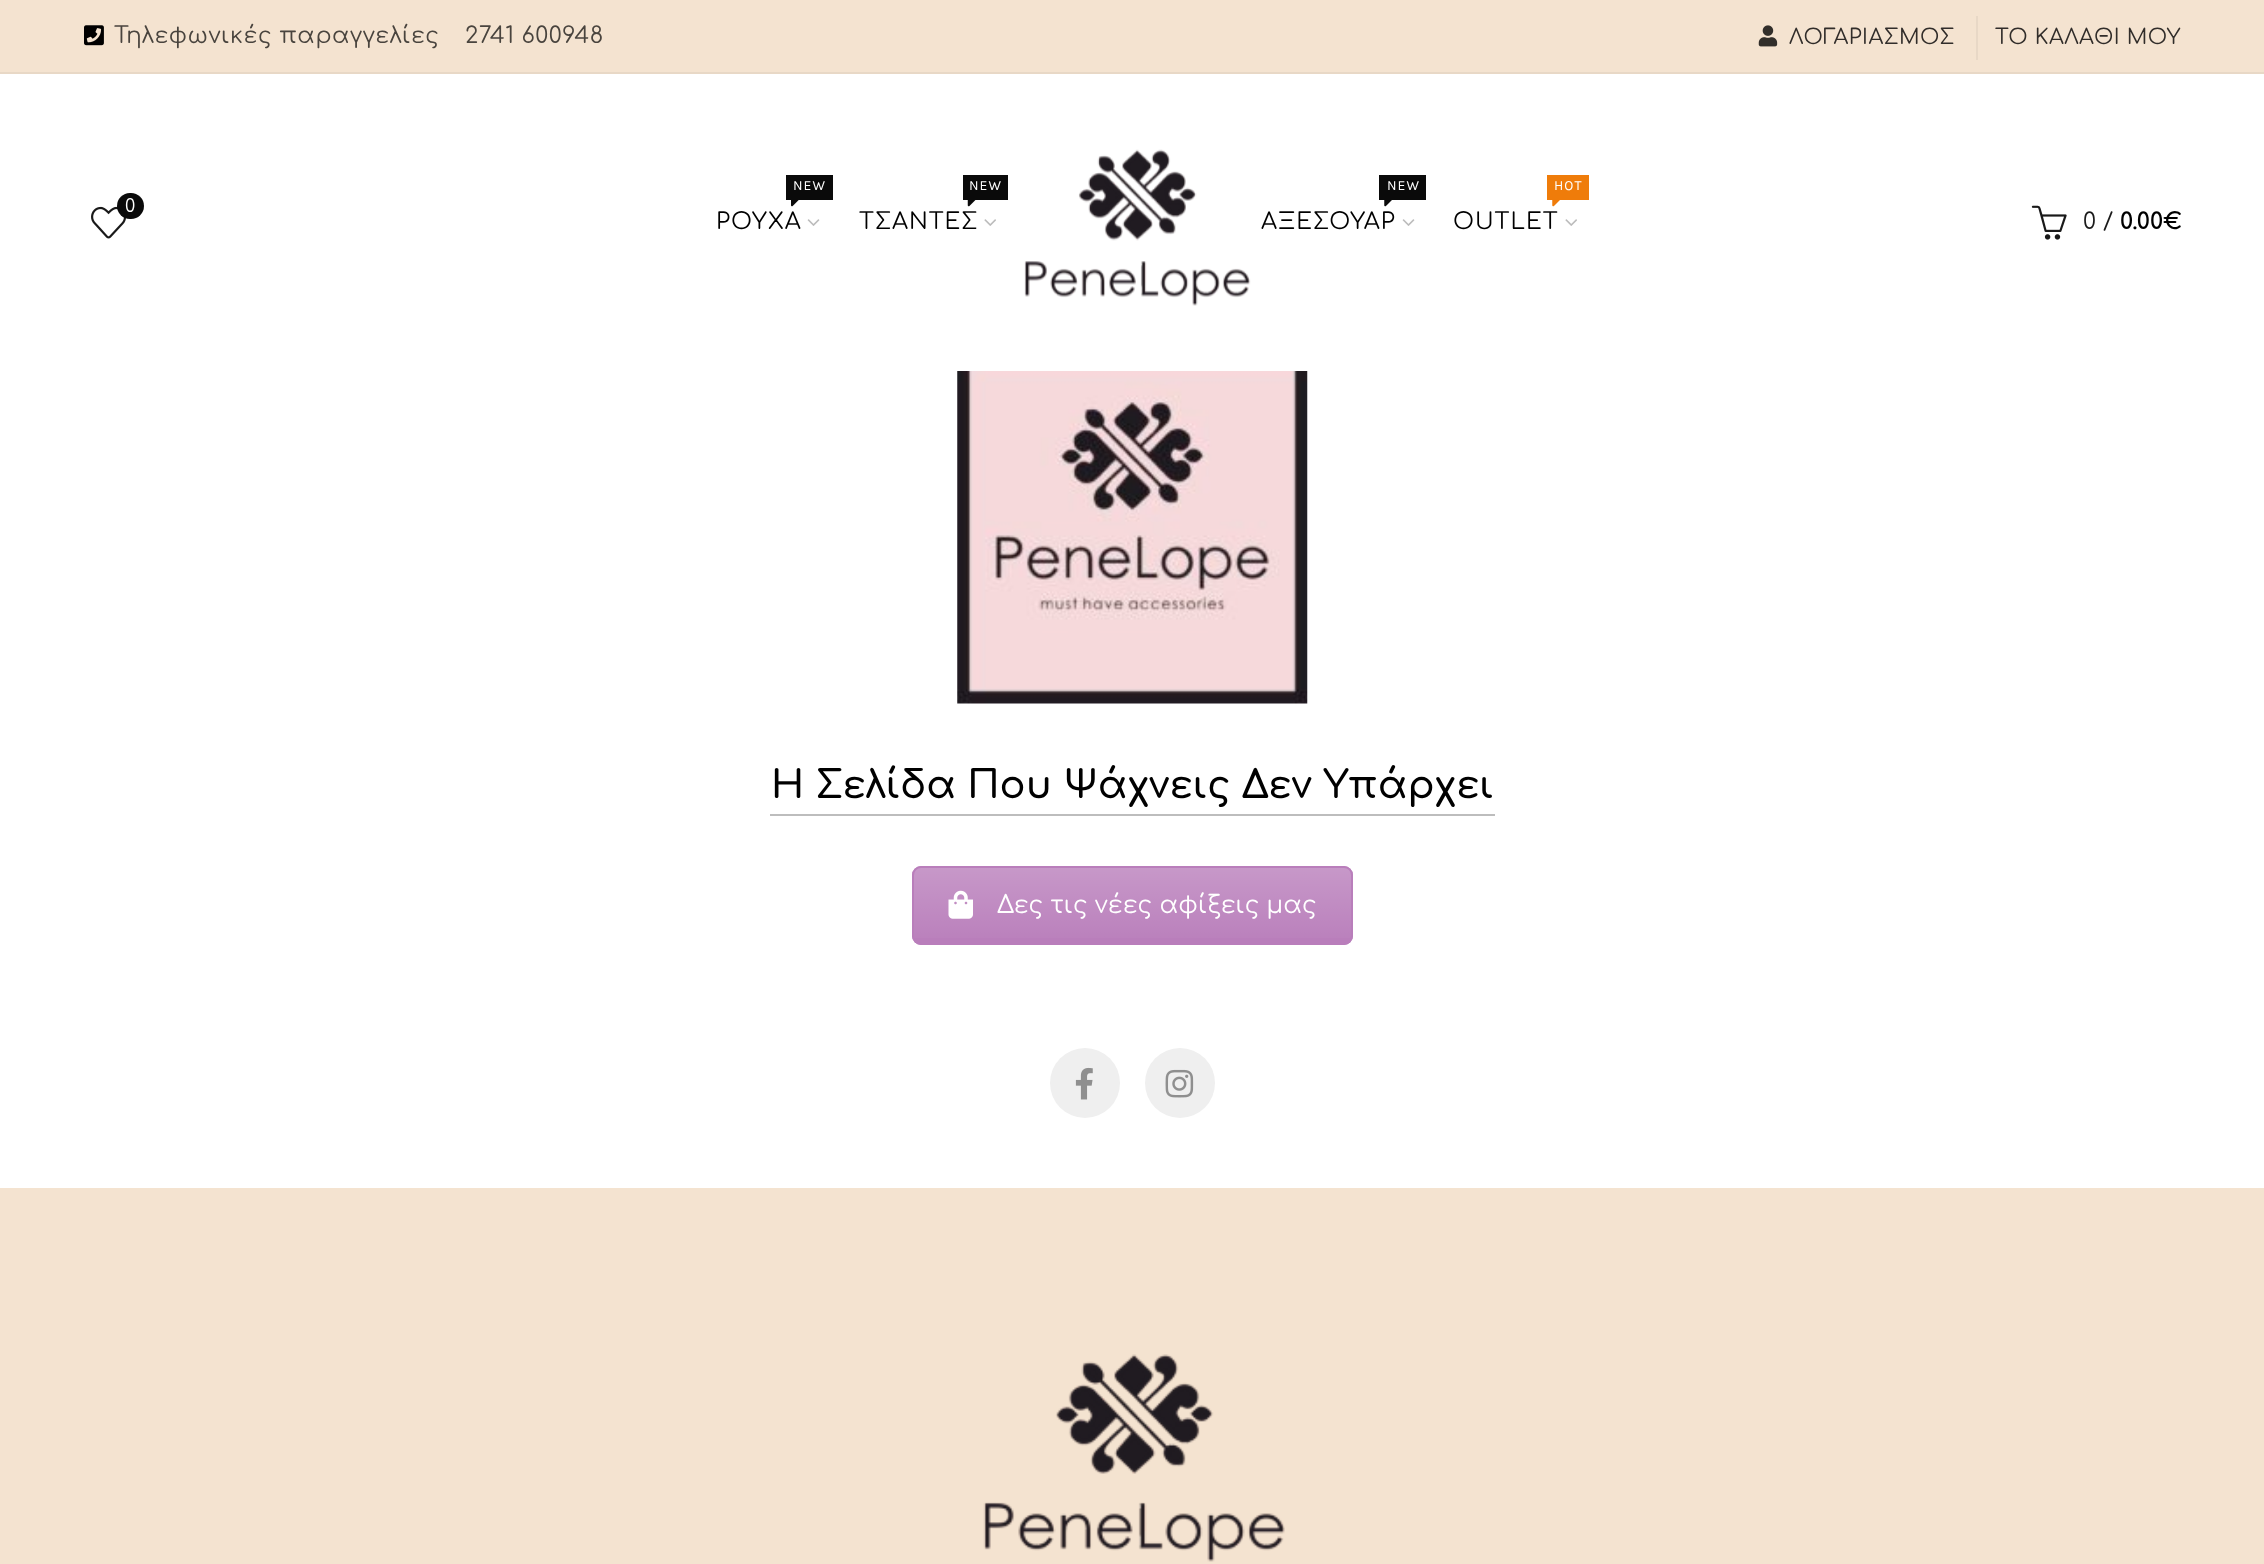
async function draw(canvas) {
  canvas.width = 2264
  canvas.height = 1564
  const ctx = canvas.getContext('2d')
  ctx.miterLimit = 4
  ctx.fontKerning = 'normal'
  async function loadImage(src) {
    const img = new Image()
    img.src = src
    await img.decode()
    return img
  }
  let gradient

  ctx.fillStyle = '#fff'
  ctx.fillRect(0, 0, 2264, 1564)
  ctx.fillStyle = '#f4e3d0'
  ctx.fillRect(0, 0, 2264, 72)
  ctx.fillStyle = '#e8d8c6'
  ctx.fillRect(0, 72, 2264, 2)
  ctx.drawImage(await loadImage('image0.png'), 84, 25, 20, 21)
  ctx.letterSpacing = '0.5px'
  ctx.font = '22.75px Comfortaa'
  ctx.fillStyle = '#49443e'
  ctx.fillText('Τηλεφωνικές παραγγελίες', 114, 43)
  ctx.fillText('2741 600948', 465, 43)
  ctx.drawImage(await loadImage('image1.png'), 1758, 25, 20, 22)
  ctx.font = '21px Comfortaa'
  ctx.fillStyle = '#312d2a'
  ctx.fillText('ΛΟΓΑΡΙΑΣΜΟΣ', 1789, 44)
  ctx.fillStyle = '#e8d8c6'
  ctx.fillRect(1976, 16, 2, 44)
  ctx.fillStyle = '#312d2a'
  ctx.fillText('ΤΟ ΚΑΛΑΘΙ ΜΟΥ', 1995, 44)
  ctx.drawImage(await loadImage('image2.png'), 1024, 149, 227, 157)
  ctx.drawImage(await loadImage('image3.png'), 91, 206, 35, 33)
  ctx.fillStyle = '#0a0a0a'
  ctx.beginPath()
  ctx.roundRect(117, 193, 27, 26, 13)
  ctx.fill()
  ctx.letterSpacing = '0px'
  ctx.font = '18px Comfortaa'
  ctx.fillStyle = '#fff'
  ctx.fillText('0', 125, 212)
  ctx.fillStyle = '#0a0a0a'
  ctx.fillRect(786, 175, 47, 25)
  ctx.letterSpacing = '1px'
  ctx.font = '14px Karla'
  ctx.fillStyle = '#fff'
  ctx.fillText('NEW', 793, 190)
  ctx.drawImage(await loadImage('image4.png'), 791, 200, 8, 7)
  ctx.font = '22.75px Comfortaa'
  ctx.fillStyle = '#000'
  ctx.fillText('ΡΟΥΧΑ', 716, 229)
  ctx.drawImage(await loadImage('image5.png'), 807, 219, 13, 7)
  ctx.fillStyle = '#0a0a0a'
  ctx.fillRect(963, 175, 45, 25)
  ctx.font = '14px Karla'
  ctx.fillStyle = '#fff'
  ctx.fillText('NEW', 969, 190)
  ctx.drawImage(await loadImage('image6.png'), 967, 200, 9, 7)
  ctx.font = '22.75px Comfortaa'
  ctx.fillStyle = '#000'
  ctx.fillText('ΤΣΑΝΤΕΣ', 859, 229)
  ctx.drawImage(await loadImage('image7.png'), 984, 219, 12, 7)
  ctx.fillStyle = '#0a0a0a'
  ctx.fillRect(1379, 175, 47, 25)
  ctx.font = '14px Karla'
  ctx.fillStyle = '#fff'
  ctx.fillText('NEW', 1387, 190)
  ctx.drawImage(await loadImage('image8.png'), 1384, 200, 8, 7)
  ctx.font = '22.75px Comfortaa'
  ctx.fillStyle = '#000'
  ctx.fillText('ΑΞΕΣΟΥΑΡ', 1261, 229)
  ctx.drawImage(await loadImage('image5.png'), 1402, 219, 13, 7)
  ctx.fillStyle = '#ef7c0a'
  ctx.fillRect(1547, 175, 42, 25)
  ctx.font = '14px Karla'
  ctx.fillStyle = '#fff'
  ctx.fillText('HOT', 1554, 190)
  ctx.drawImage(await loadImage('image9.png'), 1552, 200, 8, 7)
  ctx.font = '22.75px Comfortaa'
  ctx.fillStyle = '#000'
  ctx.fillText('OUTLET', 1453, 229)
  ctx.drawImage(await loadImage('image7.png'), 1565, 219, 12, 7)
  ctx.drawImage(await loadImage('image10.png'), 2031, 205, 36, 35)
  ctx.letterSpacing = '0px'
  ctx.fillStyle = '#1a1a1a'
  ctx.fillText('0 /', 2083, 229)
  ctx.font = 'bold 22.75px Comfortaa'
  ctx.fillStyle = '#000'
  ctx.fillText('0.00€', 2120, 229)
  ctx.drawImage(await loadImage('image11.png'), 957, 371, 351, 333)
  ctx.font = '600 38.5px Comfortaa'
  ctx.fillText('Η Σελίδα Που Ψάχνεις Δεν Υπάρχει', 771, 798)
  ctx.fillStyle = '#bdbdbd'
  ctx.fillRect(770, 814, 725, 2)
  ctx.fillStyle = '#b97ebb'
  ctx.beginPath()
  ctx.roundRect(912, 866, 441, 79, 9)
  ctx.fill()
  ctx.save()
  ctx.beginPath()
  ctx.roundRect(912, 866, 441, 79, 9)
  ctx.clip()
  gradient = ctx.createLinearGradient(1132, 868, 1132, 943)
  gradient.addColorStop(0, '#ffffff33')
  gradient.addColorStop(1, '#ffffff03')
  ctx.fillStyle = gradient
  ctx.fillRect(912, 868, 441, 70)
  ctx.restore()
  ctx.beginPath()
  ctx.roundRect(913, 867, 439, 77, 8)
  ctx.strokeStyle = '#b97ebb'
  ctx.lineWidth = 2
  ctx.stroke()
  ctx.drawImage(await loadImage('image12.png'), 948, 890, 25, 29)
  ctx.font = '24.5px Comfortaa'
  ctx.fillStyle = '#fff'
  ctx.fillText('Δες τις νέες αφίξεις μας', 997, 913)
  ctx.fillStyle = '#efefef'
  ctx.beginPath()
  ctx.arc(1085, 1083, 35, 0, 2 * Math.PI)
  ctx.fill()
  ctx.drawImage(await loadImage('image13.png'), 1075, 1067, 18, 33)
  ctx.beginPath()
  ctx.arc(1180, 1083, 35, 0, 2 * Math.PI)
  ctx.fill()
  ctx.drawImage(await loadImage('image14.png'), 1165, 1069, 29, 29)
  ctx.fillStyle = '#f4e3d0'
  ctx.fillRect(0, 1188, 2264, 376)
  ctx.drawImage(await loadImage('image15.png'), 983, 1354, 302, 208)
}

draw(document.querySelector('canvas'))
